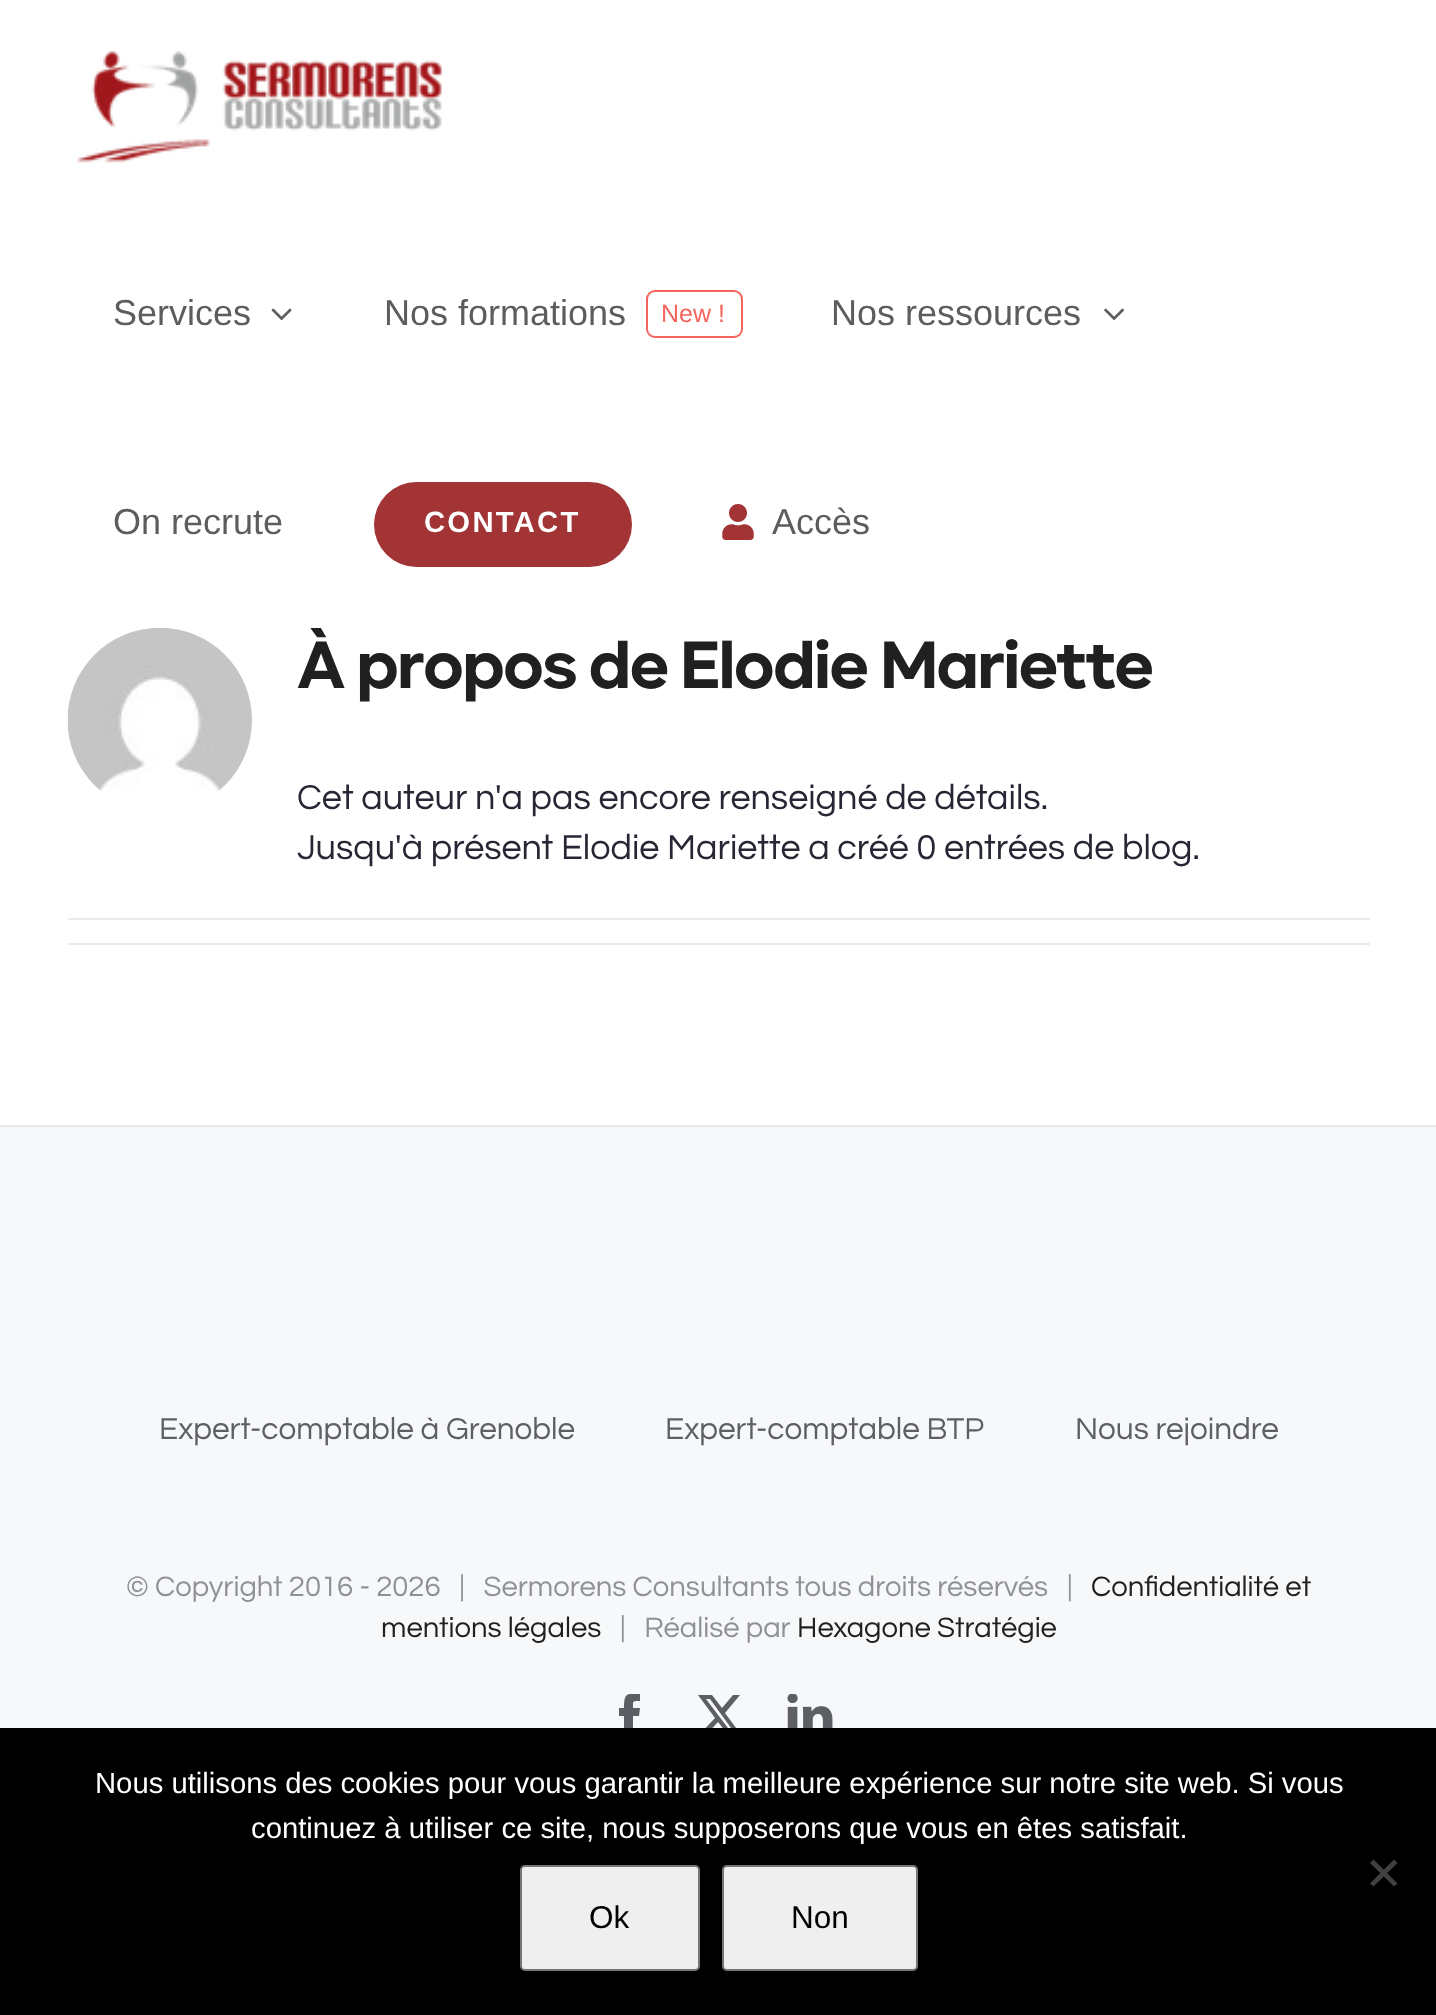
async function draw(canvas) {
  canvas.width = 1436
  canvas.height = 2015
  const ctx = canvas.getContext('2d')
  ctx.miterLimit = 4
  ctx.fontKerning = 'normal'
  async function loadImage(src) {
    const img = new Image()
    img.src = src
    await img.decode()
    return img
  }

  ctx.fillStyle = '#fff'
  ctx.fillRect(0, 0, 1436, 2015)
  ctx.drawImage(await loadImage('image0.png'), 76, 51, 368, 112)
  ctx.font = '36px Liberation Sans'
  ctx.fillStyle = '#5d5d5d'
  ctx.fillText('Services', 113, 325)
  ctx.drawImage(await loadImage('image1.png'), 271, 308, 21, 13)
  ctx.fillText('Nos formations', 384, 325)
  ctx.beginPath()
  ctx.roundRect(647, 291, 95, 46, 8)
  ctx.strokeStyle = '#f4655d'
  ctx.lineWidth = 2
  ctx.stroke()
  ctx.font = '25px Liberation Sans'
  ctx.fillStyle = '#f4655d'
  ctx.fillText('New !', 661, 322)
  ctx.font = '36px Liberation Sans'
  ctx.fillStyle = '#5d5d5d'
  ctx.fillText('Nos ressources', 831, 325)
  ctx.drawImage(await loadImage('image2.png'), 1104, 308, 20, 13)
  ctx.fillText('On recrute', 113, 534)
  ctx.fillStyle = '#a23436'
  ctx.beginPath()
  ctx.roundRect(374, 482, 258, 85, 42.5)
  ctx.fill()
  ctx.letterSpacing = '2.25px'
  ctx.font = 'bold 29.25px Liberation Sans'
  ctx.fillStyle = '#fff'
  ctx.fillText('CONTACT', 424, 532)
  ctx.drawImage(await loadImage('image3.png'), 722, 504, 32, 36)
  ctx.letterSpacing = '0px'
  ctx.font = '36px Liberation Sans'
  ctx.fillStyle = '#5d5d5d'
  ctx.fillText('Accès', 772, 534)
  ctx.drawImage(await loadImage('image4.png'), 67, 628, 185, 163)
  ctx.save()
  ctx.beginPath()
  ctx.rect(297, 628, 1073, 245)
  ctx.clip()
  ctx.letterSpacing = '-2.25px'
  ctx.font = '800 63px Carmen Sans'
  ctx.fillStyle = '#202020'
  ctx.fillText('À propos de', 297, 686)
  ctx.restore()
  ctx.letterSpacing = '-2.25px'
  ctx.font = '800 63px Carmen Sans'
  ctx.fillStyle = '#202020'
  ctx.fillText('Elodie Mariette', 680, 686)
  ctx.letterSpacing = '0px'
  ctx.font = '36px Questrial'
  ctx.fillStyle = '#282634'
  ctx.fillText('Cet auteur n\'a pas encore renseigné de détails.', 297, 809)
  ctx.fillText('Jusqu\'à présent Elodie Mariette a créé 0 entrées de blog.', 297, 859)
  ctx.fillStyle = '#e8eaf0'
  ctx.fillRect(68, 918, 1302, 2)
  ctx.fillRect(68, 943, 1302, 2)
  ctx.fillStyle = '#f7f8f9'
  ctx.fillRect(0, 1127, 1436, 601)
  ctx.fillStyle = '#e8eaf0'
  ctx.fillRect(0, 1125, 1436, 2)
  ctx.font = '31.5px Questrial'
  ctx.fillStyle = '#5d5f64'
  ctx.fillText('Expert-comptable à Grenoble', 159, 1439)
  ctx.fillText('Expert-comptable BTP', 665, 1439)
  ctx.fillText('Nous rejoindre', 1075, 1439)
  ctx.font = '29.25px Questrial'
  ctx.fillStyle = '#8f9195'
  ctx.fillText('© Copyright 2016 - 2026   |   Sermorens Consultants tous droits réservés   |', 126, 1596)
  ctx.fillStyle = '#202020'
  ctx.fillText('Confidentialité et', 1091, 1596)
  ctx.fillText('mentions légales', 381, 1637)
  ctx.fillStyle = '#8f9195'
  ctx.fillText('|   Réalisé par', 620, 1637)
  ctx.fillStyle = '#202020'
  ctx.fillText('Hexagone Stratégie', 797, 1637)
  ctx.save()
  ctx.beginPath()
  ctx.rect(68, 1694, 1302, 68)
  ctx.clip()
  ctx.fillStyle = '#5d5f64'
  ctx.beginPath()
  ctx.moveTo(633, 1738)
  ctx.lineTo(624, 1738)
  ctx.lineTo(624, 1716)
  ctx.lineTo(619, 1716)
  ctx.lineTo(619, 1708)
  ctx.lineTo(624, 1708)
  ctx.bezierCurveTo(624, 1694, 626, 1693, 640, 1693)
  ctx.lineTo(640, 1701)
  ctx.bezierCurveTo(632, 1701, 633, 1701, 633, 1708)
  ctx.lineTo(640, 1708)
  ctx.lineTo(639, 1716)
  ctx.lineTo(633, 1716)
  ctx.closePath()
  ctx.fill()
  ctx.restore()
  ctx.fillStyle = '#5d5f64'
  ctx.beginPath()
  ctx.moveTo(733, 1695)
  ctx.lineTo(740, 1695)
  ctx.lineTo(725, 1713)
  ctx.lineTo(742, 1736)
  ctx.lineTo(729, 1736)
  ctx.lineTo(718, 1722)
  ctx.lineTo(705, 1736)
  ctx.lineTo(698, 1736)
  ctx.lineTo(715, 1718)
  ctx.lineTo(698, 1695)
  ctx.lineTo(712, 1695)
  ctx.lineTo(722, 1708)
  ctx.closePath()
  ctx.moveTo(731, 1732)
  ctx.lineTo(734, 1732)
  ctx.lineTo(710, 1699)
  ctx.lineTo(706, 1699)
  ctx.closePath()
  ctx.fill()
  ctx.drawImage(await loadImage('image5.png'), 787, 1694, 46, 34)
  ctx.fillStyle = '#000'
  ctx.fillRect(0, 1728, 1436, 287)
  ctx.font = '29.25px Liberation Sans'
  ctx.fillStyle = '#fff'
  ctx.fillText('Nous utilisons des cookies pour vous garantir la meilleure expérience sur notre site web. Si vous', 95, 1793)
  ctx.fillText('continuez à utiliser ce site, nous supposerons que vous en êtes satisfait.', 251, 1838)
  ctx.fillStyle = '#404040'
  ctx.beginPath()
  ctx.moveTo(1394, 1859.5)
  ctx.lineTo(1397.5, 1863)
  ctx.lineTo(1373.5, 1886.5)
  ctx.lineTo(1370, 1883.5)
  ctx.closePath()
  ctx.fill()
  ctx.beginPath()
  ctx.moveTo(1370, 1863)
  ctx.lineTo(1373.5, 1859.5)
  ctx.lineTo(1397.5, 1883.5)
  ctx.lineTo(1394, 1886.5)
  ctx.closePath()
  ctx.fill()
  ctx.fillStyle = '#efefef'
  ctx.beginPath()
  ctx.roundRect(521, 1866, 178, 104, 4)
  ctx.fill()
  ctx.strokeStyle = '#767676'
  ctx.stroke()
  ctx.font = '31.5px Liberation Sans'
  ctx.fillStyle = '#000'
  ctx.fillText('Ok', 589, 1928)
  ctx.fillStyle = '#efefef'
  ctx.beginPath()
  ctx.roundRect(723, 1866, 194, 104, 4)
  ctx.fill()
  ctx.stroke()
  ctx.fillStyle = '#000'
  ctx.fillText('Non', 791, 1928)
}

draw(document.querySelector('canvas'))
